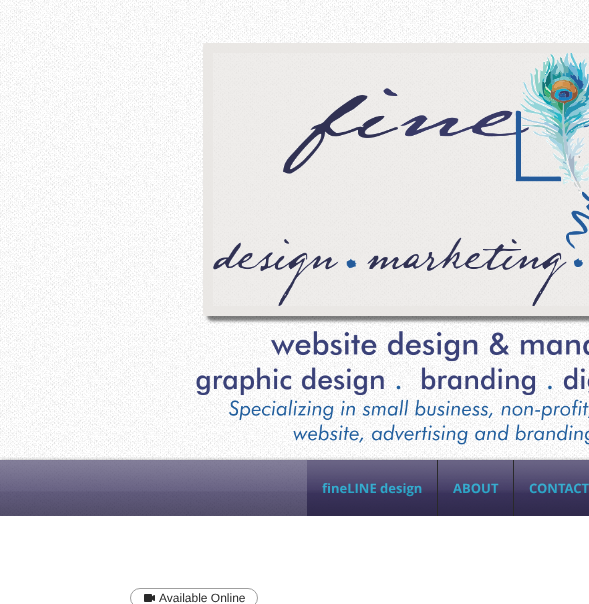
async function draw(canvas) {
  canvas.width = 589
  canvas.height = 604
  const ctx = canvas.getContext('2d')
  ctx.miterLimit = 4
  ctx.fontKerning = 'normal'
  async function loadImage(src) {
    const img = new Image()
    img.src = src
    await img.decode()
    return img
  }

  ctx.fillStyle = '#fff'
  ctx.fillRect(0, 0, 589, 604)
  ctx.drawImage(await loadImage('image0.png'), 0, 0, 589, 516)
  ctx.save()
  ctx.beginPath()
  ctx.moveTo(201, 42)
  ctx.lineTo(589, 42)
  ctx.lineTo(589, 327)
  ctx.lineTo(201, 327)
  ctx.closePath()
  ctx.moveTo(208, 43)
  ctx.lineTo(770, 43)
  ctx.bezierCurveTo(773, 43, 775, 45, 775, 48)
  ctx.lineTo(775, 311)
  ctx.bezierCurveTo(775, 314, 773, 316, 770, 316)
  ctx.lineTo(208, 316)
  ctx.bezierCurveTo(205, 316, 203, 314, 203, 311)
  ctx.lineTo(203, 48)
  ctx.bezierCurveTo(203, 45, 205, 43, 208, 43)
  ctx.closePath()
  ctx.clip('evenodd')
  ctx.fillStyle = '#00000080'
  ctx.filter = 'blur(1.5px)'
  ctx.beginPath()
  ctx.roundRect(207, 48, 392, 273, 5)
  ctx.fill()
  ctx.filter = 'none'
  ctx.restore()
  ctx.fillStyle = '#e8e5e3b3'
  ctx.beginPath()
  ctx.roundRect(203, 43, 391, 273, 5)
  ctx.fill()
  ctx.beginPath()
  ctx.rect(208, 48, 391, 263)
  ctx.strokeStyle = '#e8e5e3b3'
  ctx.lineWidth = 10
  ctx.stroke()
  ctx.drawImage(await loadImage('image1.png'), 213, 53, 376, 253)
  ctx.drawImage(await loadImage('image2.png'), 196, 331, 393, 114)
  ctx.save()
  ctx.beginPath()
  ctx.rect(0, 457, 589, 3)
  ctx.clip()
  ctx.fillStyle = '#00000099'
  ctx.filter = 'blur(2px)'
  ctx.beginPath()
  ctx.rect(0, 461, 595, 56)
  ctx.fill()
  ctx.filter = 'none'
  ctx.restore()
  ctx.fillStyle = '#322a57bf'
  ctx.fillRect(0, 460, 589, 56)
  ctx.drawImage(await loadImage('image3.png'), 0, 460, 589, 32)
  ctx.drawImage(await loadImage('image4.png'), 0, 491, 589, 25)
  ctx.fillRect(307, 460, 130, 56)
  ctx.font = 'bold 13px Open Sans'
  ctx.fillStyle = '#2aa8cc'
  ctx.fillText('fineLINE design', 322, 493)
  ctx.drawImage(await loadImage('image5.png'), 307, 460, 130, 33)
  ctx.drawImage(await loadImage('image6.png'), 307, 490, 130, 26)
  ctx.fillStyle = '#322a57bf'
  ctx.fillRect(438, 460, 75, 56)
  ctx.fillStyle = '#2a2a2a'
  ctx.fillRect(437, 460, 1, 56)
  ctx.fillStyle = '#2aa8cc'
  ctx.fillText('ABOUT', 453, 493)
  ctx.drawImage(await loadImage('image7.png'), 438, 460, 75, 33)
  ctx.drawImage(await loadImage('image8.png'), 438, 490, 75, 26)
  ctx.fillStyle = '#322a57bf'
  ctx.fillRect(514, 460, 75, 56)
  ctx.fillStyle = '#2a2a2a'
  ctx.fillRect(513, 460, 1, 56)
  ctx.fillStyle = '#2aa8cc'
  ctx.fillText('CONTACT', 529, 493)
  ctx.drawImage(await loadImage('image9.png'), 514, 460, 75, 33)
  ctx.drawImage(await loadImage('image10.png'), 514, 490, 75, 26)
  ctx.fillStyle = '#fff'
  ctx.fillRect(0, 516, 589, 5)
  ctx.beginPath()
  ctx.roundRect(130.5, 588.5, 127, 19, 9.5)
  ctx.strokeStyle = '#9f9f9f'
  ctx.lineWidth = 1
  ctx.stroke()
  ctx.drawImage(await loadImage('image11.png'), 144, 594, 11, 8)
  ctx.font = '12px Liberation Sans'
  ctx.fillStyle = '#2a2a2a'
  ctx.fillText('Available Online', 159, 602)
}

draw(document.querySelector('canvas'))
